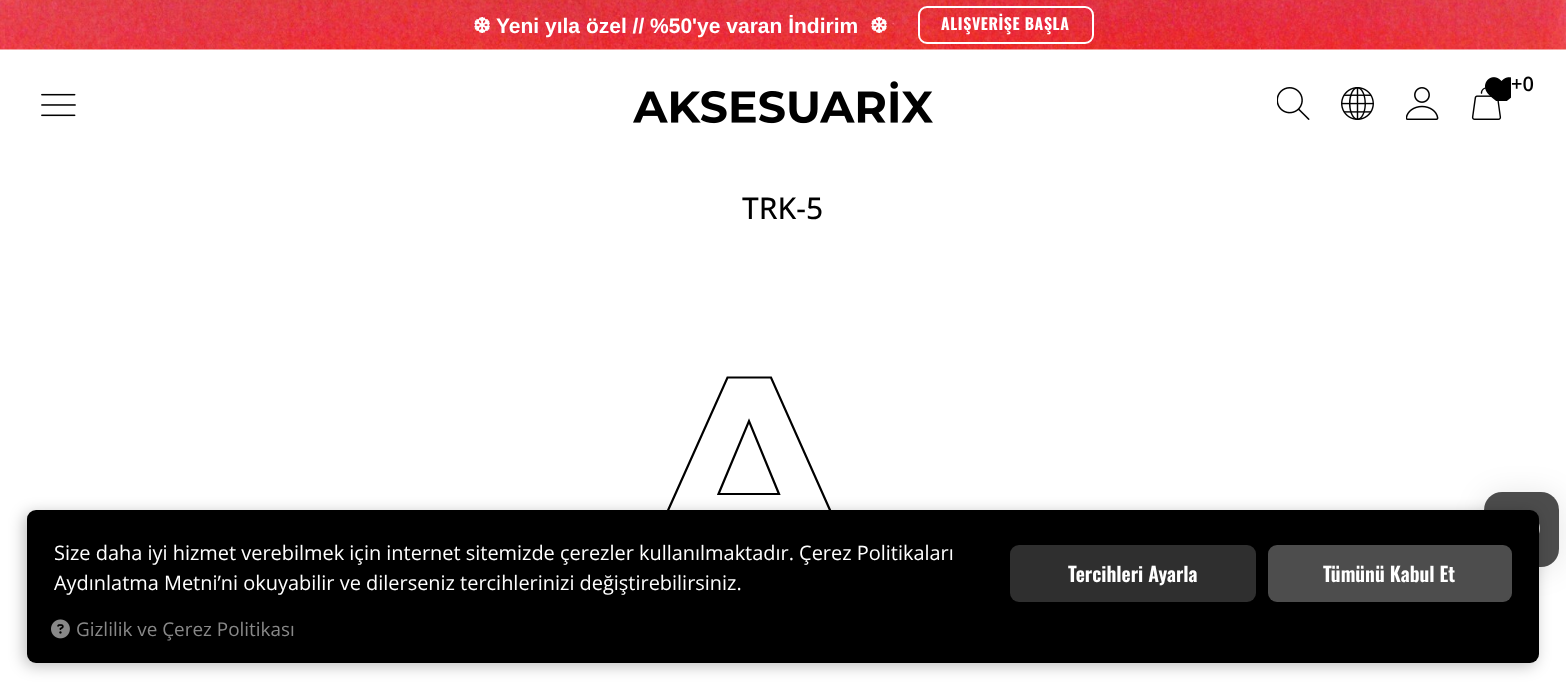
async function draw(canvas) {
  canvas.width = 1566
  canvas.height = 690
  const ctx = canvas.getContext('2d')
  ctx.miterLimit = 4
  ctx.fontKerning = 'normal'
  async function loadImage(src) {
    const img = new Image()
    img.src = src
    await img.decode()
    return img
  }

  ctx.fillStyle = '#fff'
  ctx.fillRect(0, 0, 1566, 690)
  ctx.drawImage(await loadImage('image0.png'), 0, 0, 1566, 50)
  ctx.font = 'bold 21px DejaVu Sans'
  ctx.fillText('❆', 473, 33)
  ctx.font = 'bold 21px Liberation Sans'
  ctx.fillText('Yeni yıla özel // %50\'ye varan İndirim', 496, 33)
  ctx.font = 'bold 21px DejaVu Sans'
  ctx.fillText('❆', 870, 33)
  ctx.beginPath()
  ctx.roundRect(919, 7, 174, 36, 8)
  ctx.strokeStyle = '#fff'
  ctx.lineWidth = 2
  ctx.stroke()
  ctx.letterSpacing = '0.6px'
  ctx.font = 'bold 15.75px Oswald'
  ctx.fillText('ALIŞVERİŞE BAŞLA', 941, 30)
  ctx.drawImage(await loadImage('image1.png'), 633, 81, 300, 43)
  ctx.drawImage(await loadImage('image2.png'), 1277, 87, 33, 33)
  ctx.drawImage(await loadImage('image3.png'), 1341, 87, 33, 33)
  ctx.drawImage(await loadImage('image4.png'), 1406, 87, 33, 33)
  ctx.drawImage(await loadImage('image6.png'), 1471, 87, 31, 33)
  ctx.drawImage(await loadImage('image5.png'), 1485, 77, 26, 24)
  ctx.letterSpacing = '0px'
  ctx.font = '600 20px Open Sans'
  ctx.fillStyle = '#000'
  ctx.fillText('+0', 1511, 91)
  ctx.drawImage(await loadImage('image7.png'), 41, 93, 35, 24)
  ctx.font = '500 30px Open Sans'
  ctx.fillText('TRK-5', 742, 219)
  ctx.beginPath()
  ctx.moveTo(718.5, 494)
  ctx.lineTo(749, 421)
  ctx.lineTo(779, 494)
  ctx.closePath()
  ctx.moveTo(810, 568.5)
  ctx.lineTo(856, 568.5)
  ctx.lineTo(771, 377.5)
  ctx.lineTo(727.5, 377.5)
  ctx.lineTo(642, 568.5)
  ctx.lineTo(687.5, 568.5)
  ctx.lineTo(704.5, 527.5)
  ctx.lineTo(793, 527.5)
  ctx.closePath()
  ctx.strokeStyle = '#000'
  ctx.lineWidth = 2.2
  ctx.stroke()
  ctx.save()
  ctx.beginPath()
  ctx.moveTo(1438, 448)
  ctx.lineTo(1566, 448)
  ctx.lineTo(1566, 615)
  ctx.lineTo(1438, 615)
  ctx.closePath()
  ctx.moveTo(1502, 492)
  ctx.lineTo(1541, 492)
  ctx.bezierCurveTo(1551, 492, 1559, 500, 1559, 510)
  ctx.lineTo(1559, 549)
  ctx.bezierCurveTo(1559, 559, 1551, 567, 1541, 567)
  ctx.lineTo(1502, 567)
  ctx.bezierCurveTo(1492, 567, 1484, 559, 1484, 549)
  ctx.lineTo(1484, 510)
  ctx.bezierCurveTo(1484, 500, 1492, 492, 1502, 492)
  ctx.closePath()
  ctx.clip('evenodd')
  ctx.fillStyle = '#0000001a'
  ctx.filter = 'blur(15px)'
  ctx.beginPath()
  ctx.roundRect(1484, 494, 75, 75, 18)
  ctx.fill()
  ctx.filter = 'none'
  ctx.restore()
  ctx.fillStyle = '#000000b3'
  ctx.beginPath()
  ctx.roundRect(1484, 492, 75, 75, 18)
  ctx.fill()
  ctx.drawImage(await loadImage('image9.png'), 1539, 523, 1, 11)
  ctx.fillStyle = '#00000040'
  ctx.filter = 'blur(7.5px)'
  ctx.beginPath()
  ctx.roundRect(24, 513, 1512, 153, 9)
  ctx.fill()
  ctx.filter = 'none'
  ctx.fillStyle = '#000'
  ctx.beginPath()
  ctx.roundRect(27, 510, 1512, 153, 9)
  ctx.fill()
  ctx.font = '19.95px Open Sans'
  ctx.fillStyle = '#fff'
  ctx.fillText('Size daha iyi hizmet verebilmek için internet sitemizde çerezler kullanılmaktadır. Çerez Politikaları', 54, 560)
  ctx.fillText('Aydınlatma Metni’ni okuyabilir ve dilerseniz tercihlerinizi değiştirebilirsiniz.', 54, 590)
  ctx.fillStyle = '#2f2f2f'
  ctx.beginPath()
  ctx.roundRect(1010, 545, 246, 57, 9)
  ctx.fill()
  ctx.font = '600 19.95px Oswald'
  ctx.fillStyle = '#fff'
  ctx.fillText('Tercihleri Ayarla', 1068, 582)
  ctx.fillStyle = '#4d4d4d'
  ctx.beginPath()
  ctx.roundRect(1268, 545, 244, 57, 9)
  ctx.fill()
  ctx.fillStyle = '#fff'
  ctx.fillText('Tümünü Kabul Et', 1323, 582)
  ctx.drawImage(await loadImage('image8.png'), 51, 619, 19, 20)
  ctx.font = '18.9px Open Sans'
  ctx.fillStyle = '#888'
  ctx.fillText('Gizlilik ve Çerez Politikası', 76, 636)
}

draw(document.querySelector('canvas'))
